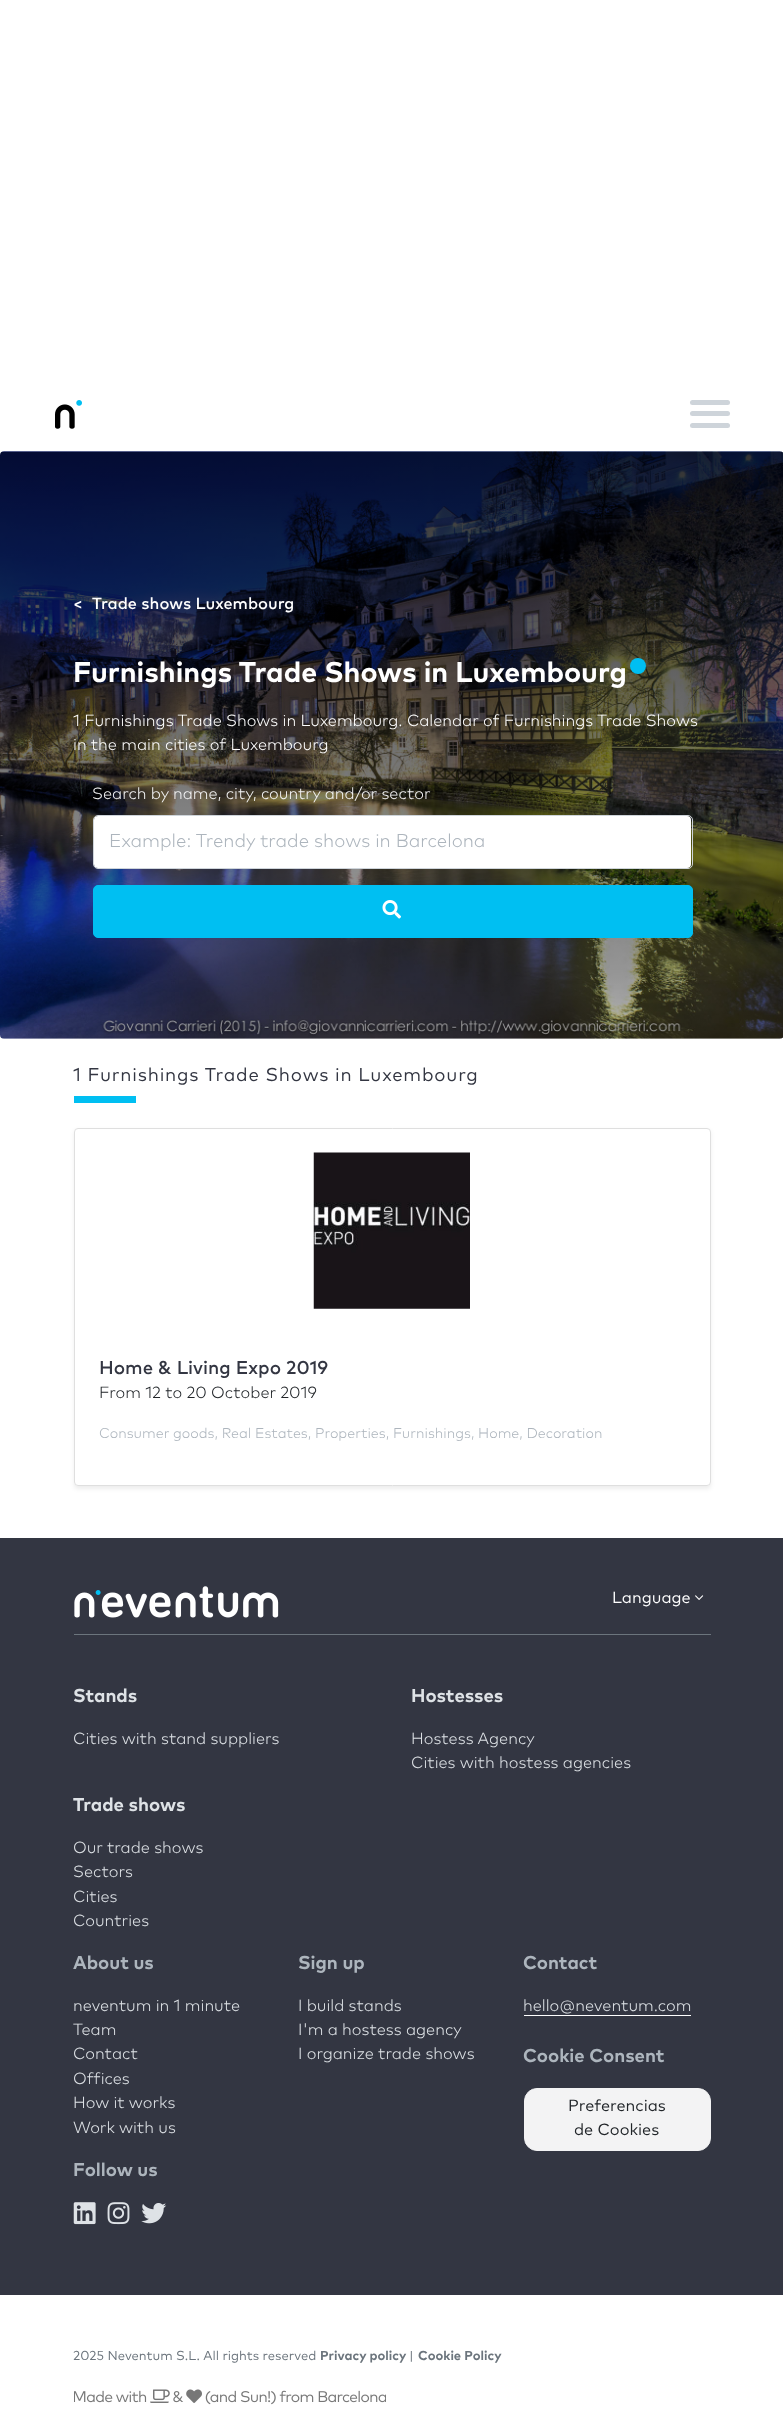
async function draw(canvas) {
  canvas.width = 783
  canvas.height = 2425
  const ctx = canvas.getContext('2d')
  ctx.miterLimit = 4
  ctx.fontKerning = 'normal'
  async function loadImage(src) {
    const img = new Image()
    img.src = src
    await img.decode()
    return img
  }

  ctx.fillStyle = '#fff'
  ctx.fillRect(0, 0, 783, 2425)
  ctx.drawImage(await loadImage('image0.png'), 55, 400, 27, 29)
  ctx.fillStyle = '#ced4da'
  ctx.beginPath()
  ctx.roundRect(690, 400, 40, 5, 2.5)
  ctx.fill()
  ctx.beginPath()
  ctx.roundRect(690, 411, 40, 5, 2.5)
  ctx.fill()
  ctx.beginPath()
  ctx.roundRect(690, 423, 40, 5, 2.5)
  ctx.fill()
  ctx.drawImage(await loadImage('image1.png'), 0, 451, 783, 588)
  ctx.font = '500 16.25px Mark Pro'
  ctx.fillStyle = '#fff'
  ctx.fillText('<', 73, 609)
  ctx.fillText('Trade shows Luxembourg', 92, 609)
  ctx.font = 'bold 28.6px Mark Pro'
  ctx.fillText('Furnishings Trade Shows in Luxembourg', 73, 682)
  ctx.fillStyle = '#00bff2'
  ctx.beginPath()
  ctx.arc(638, 666, 8, 0, 2 * Math.PI)
  ctx.fill()
  ctx.font = '300 16.25px Mark Pro'
  ctx.fillStyle = '#fff'
  ctx.fillText('1 Furnishings Trade Shows in Luxembourg. Calendar of Furnishings Trade Shows', 73, 726)
  ctx.fillText('in the main cities of Luxembourg', 73, 750)
  ctx.fillStyle = '#f3f3f4'
  ctx.fillText('Search by name, city, country and/or sector', 92, 799)
  ctx.fillStyle = '#fff'
  ctx.beginPath()
  ctx.roundRect(94, 816, 597, 52, 4)
  ctx.fill()
  ctx.beginPath()
  ctx.roundRect(93.5, 815.5, 599, 53, 4.5)
  ctx.strokeStyle = '#ced4da'
  ctx.stroke()
  ctx.font = '300 18.6px Mark Pro'
  ctx.fillStyle = '#adb5bd'
  ctx.fillText('Example: Trendy trade shows in Barcelona', 109, 847)
  ctx.fillStyle = '#00bff2'
  ctx.beginPath()
  ctx.roundRect(93.5, 885.5, 599, 52, 4.5)
  ctx.fill()
  ctx.strokeStyle = '#00bff2'
  ctx.stroke()
  ctx.drawImage(await loadImage('image2.png'), 382, 900, 19, 19)
  ctx.letterSpacing = '0.8px'
  ctx.font = '18.6px Mark Pro'
  ctx.fillStyle = '#333642'
  ctx.fillText('1 Furnishings Trade Shows in Luxembourg', 73, 1081)
  ctx.fillStyle = '#00bff2'
  ctx.fillRect(74, 1096, 62, 7)
  ctx.save()
  ctx.beginPath()
  ctx.moveTo(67, 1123)
  ctx.lineTo(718, 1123)
  ctx.lineTo(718, 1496)
  ctx.lineTo(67, 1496)
  ctx.closePath()
  ctx.moveTo(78, 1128)
  ctx.lineTo(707, 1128)
  ctx.bezierCurveTo(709, 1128, 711, 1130, 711, 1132)
  ctx.lineTo(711, 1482)
  ctx.bezierCurveTo(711, 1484, 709, 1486, 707, 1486)
  ctx.lineTo(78, 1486)
  ctx.bezierCurveTo(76, 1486, 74, 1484, 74, 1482)
  ctx.lineTo(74, 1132)
  ctx.bezierCurveTo(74, 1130, 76, 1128, 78, 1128)
  ctx.closePath()
  ctx.clip('evenodd')
  ctx.fillStyle = '#00000012'
  ctx.filter = 'blur(2px)'
  ctx.beginPath()
  ctx.roundRect(74, 1130, 637, 359, 4)
  ctx.fill()
  ctx.filter = 'none'
  ctx.restore()
  ctx.beginPath()
  ctx.roundRect(74.5, 1128.5, 636, 357, 3.5)
  ctx.strokeStyle = '#dfdfdf'
  ctx.stroke()
  ctx.drawImage(await loadImage('image3.png'), 313, 1152, 157, 157)
  ctx.letterSpacing = '0px'
  ctx.font = '500 18.6px Mark Pro'
  ctx.fillStyle = '#333642'
  ctx.fillText('Home & Living Expo 2019', 99, 1374)
  ctx.font = '300 16.25px Mark Pro'
  ctx.fillStyle = '#212529'
  ctx.fillText('From 12 to 20 October 2019', 99, 1398)
  ctx.font = '300 14.2px Mark Pro'
  ctx.fillStyle = '#adb5bd'
  ctx.fillText('Consumer goods, Real Estates, Properties, Furnishings, Home, Decoration', 99, 1438)
  ctx.fillStyle = '#333642'
  ctx.fillRect(0, 1538, 783, 757)
  ctx.drawImage(await loadImage('image4.png'), 74, 1586, 205, 32)
  ctx.font = '16.25px Mark Pro'
  ctx.fillStyle = '#fff'
  ctx.fillText('Language', 612, 1603)
  ctx.drawImage(await loadImage('image5.png'), 695, 1595, 9, 5)
  ctx.fillStyle = '#6c757d'
  ctx.fillRect(74, 1634, 637, 1)
  ctx.font = 'bold 18.6px Mark Pro'
  ctx.fillStyle = '#dee2e6'
  ctx.fillText('Stands', 73, 1702)
  ctx.font = '300 16.25px Mark Pro'
  ctx.fillText('Cities with stand suppliers', 73, 1744)
  ctx.font = 'bold 18.6px Mark Pro'
  ctx.fillText('Hostesses', 411, 1702)
  ctx.font = '300 16.25px Mark Pro'
  ctx.fillText('Hostess Agency', 411, 1744)
  ctx.fillText('Cities with hostess agencies', 411, 1768)
  ctx.font = 'bold 18.6px Mark Pro'
  ctx.fillText('Trade shows', 73, 1811)
  ctx.font = '300 16.25px Mark Pro'
  ctx.fillText('Our trade shows', 73, 1853)
  ctx.fillText('Sectors', 73, 1877)
  ctx.fillText('Cities', 73, 1902)
  ctx.fillText('Countries', 73, 1926)
  ctx.font = 'bold 18.6px Mark Pro'
  ctx.fillStyle = '#adb5bd'
  ctx.fillText('About us', 73, 1969)
  ctx.font = '300 16.25px Mark Pro'
  ctx.fillStyle = '#dee2e6'
  ctx.fillText('neventum in 1 minute', 73, 2011)
  ctx.fillText('Team', 73, 2035)
  ctx.fillText('Contact', 73, 2059)
  ctx.fillText('Offices', 73, 2084)
  ctx.fillText('How it works', 73, 2108)
  ctx.fillText('Work with us', 73, 2133)
  ctx.font = 'bold 18.6px Mark Pro'
  ctx.fillStyle = '#adb5bd'
  ctx.fillText('Sign up', 298, 1969)
  ctx.font = '300 16.25px Mark Pro'
  ctx.fillStyle = '#dee2e6'
  ctx.fillText('I build stands', 298, 2011)
  ctx.fillText('I\'m a hostess agency', 298, 2035)
  ctx.fillText('I organize trade shows', 298, 2059)
  ctx.font = 'bold 18.6px Mark Pro'
  ctx.fillStyle = '#adb5bd'
  ctx.fillText('Contact', 523, 1969)
  ctx.font = '300 16.25px Mark Pro'
  ctx.fillStyle = '#dee2e6'
  ctx.fillText('hello@neventum.com', 523, 2011)
  ctx.fillStyle = '#fff'
  ctx.fillRect(524, 2015, 167, 1)
  ctx.font = 'bold 18.6px Mark Pro'
  ctx.fillStyle = '#adb5bd'
  ctx.fillText('Cookie Consent', 523, 2062)
  ctx.fillStyle = '#f3f3f4'
  ctx.beginPath()
  ctx.roundRect(524.5, 2088.5, 186, 62, 12.5)
  ctx.fill()
  ctx.strokeStyle = '#f3f3f4'
  ctx.stroke()
  ctx.font = '16.25px Mark Pro'
  ctx.fillStyle = '#212529'
  ctx.fillText('Preferencias', 568, 2111)
  ctx.fillText('de Cookies', 574, 2135)
  ctx.font = 'bold 18.6px Mark Pro'
  ctx.fillStyle = '#adb5bd'
  ctx.fillText('Follow us', 73, 2176)
  ctx.drawImage(await loadImage('image6.png'), 73, 2202, 23, 23)
  ctx.drawImage(await loadImage('image7.png'), 107, 2202, 23, 23)
  ctx.drawImage(await loadImage('image8.png'), 141, 2203, 26, 21)
  ctx.font = '13px Mark Pro'
  ctx.fillStyle = '#6c757d'
  ctx.fillText('2025 Neventum S.L. All rights reserved', 73, 2360)
  ctx.font = 'bold 13px Mark Pro'
  ctx.fillText('Privacy policy', 320, 2360)
  ctx.font = '13px Mark Pro'
  ctx.fillText('|', 409, 2360)
  ctx.font = 'bold 13px Mark Pro'
  ctx.fillText('Cookie Policy', 418, 2360)
  ctx.drawImage(await loadImage('image9.png'), 74, 2389, 312, 16)
}

draw(document.querySelector('canvas'))
